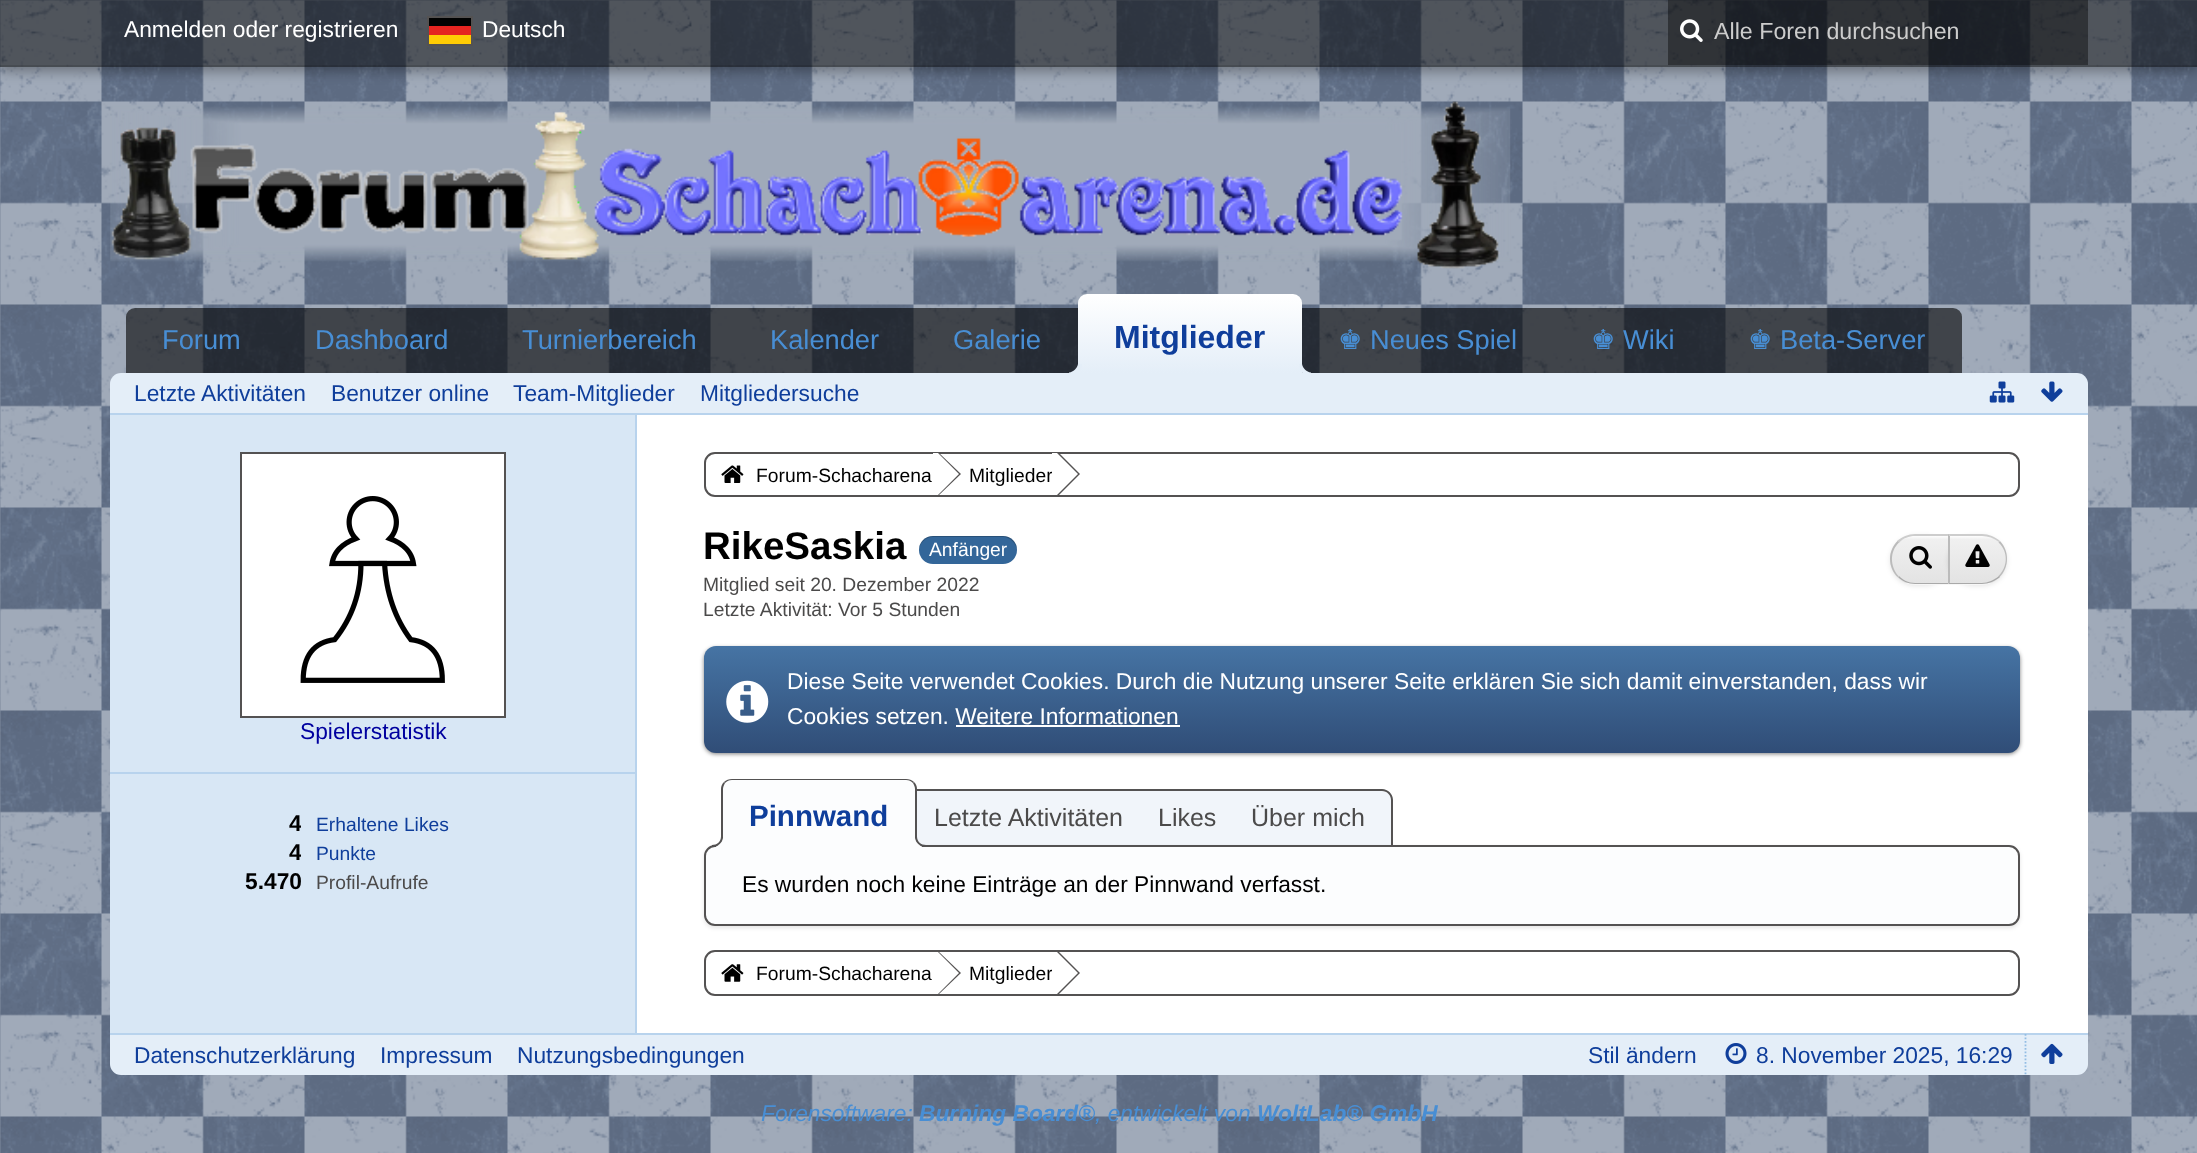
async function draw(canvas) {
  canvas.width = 2197
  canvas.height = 1153
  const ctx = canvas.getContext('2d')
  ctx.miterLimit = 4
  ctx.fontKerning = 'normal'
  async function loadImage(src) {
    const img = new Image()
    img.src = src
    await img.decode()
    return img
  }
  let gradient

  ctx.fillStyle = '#fff'
  ctx.fillRect(0, 0, 2197, 1153)
  ctx.drawImage(await loadImage('image0.png'), 0, 0, 2197, 1153)
  ctx.save()
  ctx.beginPath()
  ctx.moveTo(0, 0)
  ctx.lineTo(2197, 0)
  ctx.lineTo(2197, 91)
  ctx.lineTo(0, 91)
  ctx.closePath()
  ctx.moveTo(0, -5)
  ctx.lineTo(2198, -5)
  ctx.lineTo(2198, 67)
  ctx.lineTo(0, 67)
  ctx.closePath()
  ctx.clip('evenodd')
  ctx.fillStyle = '#0000004d'
  ctx.filter = 'blur(6px)'
  ctx.beginPath()
  ctx.rect(0, 0, 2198, 72)
  ctx.fill()
  ctx.filter = 'none'
  ctx.restore()
  ctx.fillStyle = '#00000080'
  ctx.fillRect(0, 0, 2197, 67)
  ctx.fillStyle = '#0000001a'
  ctx.fillRect(0, 65, 2197, 2)
  ctx.font = '22.75px Liberation Sans'
  ctx.fillStyle = '#fff'
  ctx.fillText('Anmelden oder registrieren', 124, 37)
  ctx.strokeStyle = '#545252'
  ctx.lineWidth = 2
  ctx.strokeRect(428, 17, 44, 28)
  ctx.fillStyle = '#010202'
  ctx.fillRect(429, 18, 42, 8)
  ctx.fillStyle = '#e52420'
  ctx.fillRect(429, 26, 42, 9)
  ctx.fillStyle = '#ffcc04'
  ctx.fillRect(429, 35, 42, 9)
  ctx.fillStyle = '#fff'
  ctx.fillText('Deutsch', 482, 37)
  ctx.fillStyle = '#00000066'
  ctx.fillRect(1668, 0, 420, 65)
  ctx.drawImage(await loadImage('image1.png'), 1680, 19, 23, 23)
  ctx.font = '23.25px Liberation Sans'
  ctx.fillStyle = '#ccc'
  ctx.fillText('Alle Foren durchsuchen', 1714, 39)
  ctx.drawImage(await loadImage('image2.png'), 110, 101, 1401, 168)
  ctx.fillStyle = '#00000099'
  ctx.beginPath()
  ctx.roundRect(126, 308, 1836, 65, [9, 9, 0, 0])
  ctx.fill()
  ctx.font = '27.25px Liberation Sans'
  ctx.fillStyle = '#488ed4'
  ctx.fillText('Forum', 162, 349)
  ctx.fillText('Dashboard', 315, 349)
  ctx.fillText('Turnierbereich', 522, 349)
  ctx.fillText('Kalender', 770, 349)
  ctx.fillText('Galerie', 953, 349)
  gradient = ctx.createLinearGradient(1190, 294, 1190, 373)
  gradient.addColorStop(0, '#fff')
  gradient.addColorStop(1, '#e4eef8')
  ctx.fillStyle = gradient
  ctx.beginPath()
  ctx.roundRect(1078, 294, 224, 79, [9, 9, 0, 0])
  ctx.fill()
  ctx.font = 'bold 32px Liberation Sans'
  ctx.fillStyle = '#0f3e9b'
  ctx.fillText('Mitglieder', 1114, 348)
  ctx.fillStyle = '#e4eef8'
  ctx.beginPath()
  ctx.roundRect(110, 373, 1978, 42, [11, 11, 0, 0])
  ctx.fill()
  ctx.beginPath()
  ctx.moveTo(1069, 372.5)
  ctx.lineTo(1069, 376)
  ctx.bezierCurveTo(1077, 376, 1082, 372.5, 1082, 364)
  ctx.lineTo(1078, 364)
  ctx.bezierCurveTo(1077, 368.5, 1073.5, 372, 1069, 372.5)
  ctx.closePath()
  ctx.fill()
  ctx.beginPath()
  ctx.moveTo(1299, 364)
  ctx.bezierCurveTo(1299, 371.5, 1303.5, 376, 1311, 376)
  ctx.lineTo(1311, 372.5)
  ctx.bezierCurveTo(1306.5, 372, 1303, 368.5, 1302, 364)
  ctx.closePath()
  ctx.fill()
  ctx.font = '27.25px DejaVu Sans'
  ctx.fillStyle = '#488ed4'
  ctx.fillText('♚', 1338, 349)
  ctx.font = '27.25px Liberation Sans'
  ctx.fillText('Neues Spiel', 1370, 349)
  ctx.font = '27.25px DejaVu Sans'
  ctx.fillText('♚', 1591, 349)
  ctx.font = '27.25px Liberation Sans'
  ctx.fillText('Wiki', 1623, 349)
  ctx.font = '27.25px DejaVu Sans'
  ctx.fillText('♚', 1748, 349)
  ctx.font = '27.25px Liberation Sans'
  ctx.fillText('Beta-Server', 1780, 349)
  ctx.fillStyle = '#b8d3ed'
  ctx.fillRect(110, 413, 1978, 2)
  ctx.font = '22.75px Liberation Sans'
  ctx.fillStyle = '#0f3e9b'
  ctx.fillText('Letzte Aktivitäten', 134, 401)
  ctx.fillText('Benutzer online', 331, 401)
  ctx.fillText('Team-Mitglieder', 513, 401)
  ctx.fillText('Mitgliedersuche', 700, 401)
  ctx.drawImage(await loadImage('image3.png'), 1989, 381, 26, 22)
  ctx.drawImage(await loadImage('image4.png'), 2041, 381, 22, 21)
  ctx.fillStyle = '#fff'
  ctx.fillRect(637, 415, 1451, 618)
  ctx.fillStyle = '#d8e7f5'
  ctx.fillRect(110, 415, 525, 618)
  ctx.fillStyle = '#b8d3ed'
  ctx.fillRect(635, 415, 2, 618)
  ctx.fillRect(110, 772, 527, 2)
  ctx.fillStyle = '#fff'
  ctx.beginPath()
  ctx.rect(241, 453, 264, 264)
  ctx.fill()
  ctx.stroke()
  ctx.drawImage(await loadImage('image5.png'), 300, 496, 145, 187)
  ctx.fillStyle = '#00009f'
  ctx.fillText('Spielerstatistik', 300, 739)
  ctx.save()
  ctx.beginPath()
  ctx.rect(135, 810, 166, 30)
  ctx.clip()
  ctx.font = 'bold 22.75px Liberation Sans'
  ctx.fillStyle = '#000'
  ctx.fillText('4', 289, 831)
  ctx.restore()
  ctx.font = '19.3px Liberation Sans'
  ctx.fillStyle = '#0f3e9b'
  ctx.fillText('Erhaltene Likes', 316, 831)
  ctx.save()
  ctx.beginPath()
  ctx.rect(135, 840, 166, 28)
  ctx.clip()
  ctx.font = 'bold 22.75px Liberation Sans'
  ctx.fillStyle = '#000'
  ctx.fillText('4', 289, 860)
  ctx.restore()
  ctx.fillText('Punkte', 316, 860)
  ctx.font = 'bold 22.75px Liberation Sans'
  ctx.fillStyle = '#000'
  ctx.fillText('5.470', 245, 889)
  ctx.font = '19.3px Liberation Sans'
  ctx.fillStyle = '#4b4a4a'
  ctx.fillText('Profil-Aufrufe', 316, 889)
  ctx.beginPath()
  ctx.roundRect(705, 453, 1314, 43, 10)
  ctx.stroke()
  ctx.drawImage(await loadImage('image6.png'), 721, 465, 23, 18)
  ctx.fillStyle = '#000'
  ctx.fillText('Forum-Schacharena', 756, 482)
  ctx.fillStyle = '#545252'
  ctx.beginPath()
  ctx.moveTo(939, 453)
  ctx.lineTo(961, 474)
  ctx.lineTo(939, 495)
  ctx.lineTo(934, 495)
  ctx.lineTo(934, 453)
  ctx.closePath()
  ctx.fill()
  ctx.fillStyle = '#fff'
  ctx.beginPath()
  ctx.moveTo(938, 453)
  ctx.lineTo(959, 474)
  ctx.lineTo(938, 495)
  ctx.lineTo(933, 495)
  ctx.lineTo(933, 453)
  ctx.closePath()
  ctx.fill()
  ctx.fillStyle = '#000'
  ctx.fillText('Mitglieder', 969, 482)
  ctx.fillStyle = '#545252'
  ctx.beginPath()
  ctx.moveTo(1059, 453)
  ctx.lineTo(1080, 474)
  ctx.lineTo(1059, 495)
  ctx.lineTo(1054, 495)
  ctx.lineTo(1054, 453)
  ctx.closePath()
  ctx.fill()
  ctx.fillStyle = '#fff'
  ctx.beginPath()
  ctx.moveTo(1057, 453)
  ctx.lineTo(1078, 474)
  ctx.lineTo(1057, 495)
  ctx.lineTo(1052, 495)
  ctx.lineTo(1052, 453)
  ctx.closePath()
  ctx.fill()
  ctx.font = 'bold 38.5px Liberation Sans'
  ctx.fillStyle = '#000'
  ctx.fillText('RikeSaskia', 703, 559)
  ctx.fillStyle = '#369'
  ctx.beginPath()
  ctx.roundRect(919, 536, 98, 28, 14)
  ctx.fill()
  ctx.fillStyle = '#00000033'
  ctx.beginPath()
  ctx.moveTo(933, 537)
  ctx.lineTo(1003, 537)
  ctx.bezierCurveTo(1010, 537, 1017, 544, 1017, 551)
  ctx.lineTo(1017, 550)
  ctx.bezierCurveTo(1017, 542, 1011, 536, 1003, 536)
  ctx.lineTo(933, 536)
  ctx.bezierCurveTo(925, 536, 919, 542, 919, 550)
  ctx.lineTo(919, 551)
  ctx.bezierCurveTo(919, 544, 925, 537, 933, 537)
  ctx.closePath()
  ctx.fill()
  ctx.font = '19.3px Liberation Sans'
  ctx.fillStyle = '#fff'
  ctx.fillText('Anfänger', 929, 556)
  ctx.fillStyle = '#0000001a'
  ctx.filter = 'blur(2.5px)'
  ctx.beginPath()
  ctx.roundRect(1890, 536, 60, 50, 25)
  ctx.fill()
  ctx.filter = 'none'
  ctx.save()
  ctx.beginPath()
  ctx.roundRect(1890, 534, 60, 51, [25.5, 0, 0, 25.5])
  ctx.clip()
  gradient = ctx.createLinearGradient(1920, 536, 1920, 583)
  gradient.addColorStop(0, '#fdfdfd')
  gradient.addColorStop(0.07, '#f0f0f0')
  gradient.addColorStop(1, '#e3e3e3')
  ctx.fillStyle = gradient
  ctx.fillRect(1890, 536, 58, 47)
  gradient = ctx.createLinearGradient(1920, 583, 1920, 630)
  gradient.addColorStop(0, '#fdfdfd')
  gradient.addColorStop(0.07, '#f0f0f0')
  gradient.addColorStop(1, '#e3e3e3')
  ctx.fillStyle = gradient
  ctx.fillRect(1905, 583, 45, 2)
  ctx.restore()
  ctx.fillStyle = '#cdcdcd'
  ctx.beginPath()
  ctx.moveTo(1915, 534)
  ctx.bezierCurveTo(1908, 534, 1902, 537, 1897, 541)
  ctx.lineTo(1899, 543)
  ctx.bezierCurveTo(1903, 538, 1909, 536, 1915, 536)
  ctx.lineTo(1947, 536)
  ctx.lineTo(1949, 534)
  ctx.closePath()
  ctx.fill()
  ctx.fillStyle = '#bbb'
  ctx.beginPath()
  ctx.moveTo(1950, 584)
  ctx.lineTo(1948, 583)
  ctx.lineTo(1948, 536)
  ctx.lineTo(1947, 536)
  ctx.lineTo(1949, 534)
  ctx.closePath()
  ctx.fill()
  ctx.fillStyle = '#a9a9a9'
  ctx.beginPath()
  ctx.moveTo(1949, 584)
  ctx.lineTo(1915, 584)
  ctx.bezierCurveTo(1908, 584, 1902, 581, 1898, 577)
  ctx.lineTo(1899, 576)
  ctx.bezierCurveTo(1903, 580, 1908, 583, 1915, 583)
  ctx.lineTo(1948, 583)
  ctx.closePath()
  ctx.fill()
  ctx.fillStyle = '#bbb'
  ctx.beginPath()
  ctx.moveTo(1890, 559)
  ctx.bezierCurveTo(1890, 566, 1893, 572.5, 1897.5, 577)
  ctx.lineTo(1898.5, 576)
  ctx.bezierCurveTo(1890, 566.5, 1889.5, 551.5, 1899, 542.5)
  ctx.lineTo(1897.5, 541)
  ctx.bezierCurveTo(1893, 545.5, 1890, 552, 1890, 559)
  ctx.closePath()
  ctx.fill()
  ctx.drawImage(await loadImage('image7.png'), 1909, 546, 23, 23)
  ctx.fillStyle = '#0000001a'
  ctx.filter = 'blur(2.5px)'
  ctx.beginPath()
  ctx.roundRect(1948, 536, 59, 50, 25)
  ctx.fill()
  ctx.filter = 'none'
  ctx.save()
  ctx.beginPath()
  ctx.roundRect(1948, 534, 59, 51, [0, 25.5, 25.5, 0])
  ctx.clip()
  gradient = ctx.createLinearGradient(1978, 536, 1978, 583)
  gradient.addColorStop(0, '#fdfdfd')
  gradient.addColorStop(0.07, '#f0f0f0')
  gradient.addColorStop(1, '#e3e3e3')
  ctx.fillStyle = gradient
  ctx.fillRect(1949, 536, 58, 47)
  gradient = ctx.createLinearGradient(1978, 583, 1978, 630)
  gradient.addColorStop(0, '#fdfdfd')
  gradient.addColorStop(0.07, '#f0f0f0')
  gradient.addColorStop(1, '#e3e3e3')
  ctx.fillStyle = gradient
  ctx.fillRect(1948, 583, 44, 2)
  ctx.restore()
  ctx.fillStyle = '#cdcdcd'
  ctx.beginPath()
  ctx.moveTo(1948, 534)
  ctx.lineTo(1950, 536)
  ctx.lineTo(1982, 536)
  ctx.bezierCurveTo(1988, 536, 1994, 538, 1999, 542)
  ctx.lineTo(2000, 541)
  ctx.bezierCurveTo(1995, 537, 1989, 534, 1982, 534)
  ctx.closePath()
  ctx.fill()
  ctx.fillStyle = '#bbb'
  ctx.beginPath()
  ctx.moveTo(2000, 541)
  ctx.bezierCurveTo(2009.5, 551, 2009.5, 567.5, 1999.5, 577)
  ctx.lineTo(1998.5, 576)
  ctx.bezierCurveTo(2008, 567, 2008.5, 551.5, 1998.5, 542.5)
  ctx.closePath()
  ctx.fill()
  ctx.fillStyle = '#a9a9a9'
  ctx.beginPath()
  ctx.moveTo(2000, 577)
  ctx.bezierCurveTo(1995, 581, 1989, 584, 1982, 584)
  ctx.lineTo(1948, 584)
  ctx.lineTo(1950, 582)
  ctx.lineTo(1950, 583)
  ctx.lineTo(1982, 583)
  ctx.bezierCurveTo(1988, 583, 1994, 580, 1999, 576)
  ctx.closePath()
  ctx.fill()
  ctx.fillStyle = '#bbb'
  ctx.beginPath()
  ctx.moveTo(1950, 536)
  ctx.lineTo(1948, 534)
  ctx.lineTo(1948, 584)
  ctx.lineTo(1950, 582)
  ctx.closePath()
  ctx.fill()
  ctx.drawImage(await loadImage('image8.png'), 1965, 544, 25, 23)
  ctx.fillStyle = '#4b4a4a'
  ctx.fillText('Mitglied seit 20. Dezember 2022', 703, 591)
  ctx.fillText('Letzte Aktivität: Vor 5 Stunden', 703, 616)
  ctx.fillStyle = '#00000080'
  ctx.filter = 'blur(2px)'
  ctx.beginPath()
  ctx.roundRect(704, 648, 1316, 106, 12)
  ctx.fill()
  ctx.filter = 'none'
  gradient = ctx.createLinearGradient(1362, 646, 1362, 753)
  gradient.addColorStop(0, '#4674a4')
  gradient.addColorStop(1, '#304d77')
  ctx.fillStyle = gradient
  ctx.beginPath()
  ctx.roundRect(704, 646, 1316, 107, 12)
  ctx.fill()
  ctx.drawImage(await loadImage('image9.png'), 726, 680, 43, 43)
  ctx.font = '22.75px Liberation Sans'
  ctx.fillStyle = '#fff'
  ctx.fillText('Diese Seite verwendet Cookies. Durch die Nutzung unserer Seite erklären Sie sich damit einverstanden, dass wir', 787, 689)
  ctx.fillText('Cookies setzen. Weitere Informationen', 787, 724)
  ctx.fillRect(956, 725, 224, 2)
  ctx.fillStyle = '#f1f5fa'
  ctx.beginPath()
  ctx.roundRect(723, 791, 668, 56, [9, 9, 0, 0])
  ctx.fill()
  ctx.fillStyle = '#545252'
  ctx.beginPath()
  ctx.moveTo(732, 789)
  ctx.lineTo(1382, 789)
  ctx.bezierCurveTo(1388, 789, 1393, 794, 1393, 800)
  ctx.lineTo(1393, 847)
  ctx.lineTo(721, 847)
  ctx.lineTo(721, 800)
  ctx.bezierCurveTo(721, 794, 726, 789, 732, 789)
  ctx.closePath()
  ctx.moveTo(732, 791)
  ctx.lineTo(1382, 791)
  ctx.bezierCurveTo(1387, 791, 1391, 795, 1391, 800)
  ctx.lineTo(1391, 847)
  ctx.lineTo(723, 847)
  ctx.lineTo(723, 800)
  ctx.bezierCurveTo(723, 795, 727, 791, 732, 791)
  ctx.closePath()
  ctx.fill('evenodd')
  ctx.fillStyle = '#0000001a'
  ctx.filter = 'blur(2px)'
  ctx.beginPath()
  ctx.roundRect(704, 847, 1316, 81, 11)
  ctx.fill()
  ctx.filter = 'none'
  ctx.fillStyle = '#fcfdfe'
  ctx.beginPath()
  ctx.roundRect(705, 846, 1314, 79, 10)
  ctx.fill()
  ctx.stroke()
  ctx.beginPath()
  ctx.roundRect(721, 779, 196, 68, [11, 11, 0, 0])
  ctx.fill()
  ctx.fillStyle = '#545252'
  ctx.beginPath()
  ctx.moveTo(732, 779)
  ctx.bezierCurveTo(729, 779, 726, 780, 724, 782)
  ctx.lineTo(725, 783)
  ctx.bezierCurveTo(727, 781, 729, 780, 732, 780)
  ctx.lineTo(906, 780)
  ctx.bezierCurveTo(909, 780, 911, 781, 913, 783)
  ctx.lineTo(914, 782)
  ctx.bezierCurveTo(912, 780, 909, 779, 906, 779)
  ctx.closePath()
  ctx.fill()
  ctx.beginPath()
  ctx.moveTo(914, 782)
  ctx.bezierCurveTo(916, 784, 917, 786, 917, 789)
  ctx.lineTo(917, 847)
  ctx.lineTo(915, 845)
  ctx.lineTo(915, 789)
  ctx.bezierCurveTo(915, 787, 914, 785, 913, 783)
  ctx.closePath()
  ctx.fill()
  ctx.fillStyle = '#fcfdfe'
  ctx.beginPath()
  ctx.moveTo(917, 847)
  ctx.lineTo(915, 845)
  ctx.lineTo(723, 845)
  ctx.lineTo(721, 847)
  ctx.closePath()
  ctx.fill()
  ctx.fillStyle = '#545252'
  ctx.beginPath()
  ctx.moveTo(721, 847)
  ctx.lineTo(723, 845)
  ctx.lineTo(723, 789)
  ctx.bezierCurveTo(723, 787, 724, 785, 725, 783)
  ctx.lineTo(724, 782)
  ctx.bezierCurveTo(722, 784, 721, 786, 721, 789)
  ctx.closePath()
  ctx.fill()
  ctx.font = 'bold 29.5px Liberation Sans'
  ctx.fillStyle = '#0f3e9b'
  ctx.fillText('Pinnwand', 749, 826)
  ctx.save()
  ctx.beginPath()
  ctx.rect(712, 837, 11, 10)
  ctx.clip()
  ctx.fillStyle = '#fcfdfe'
  ctx.beginPath()
  ctx.moveTo(716, 846.5)
  ctx.lineTo(716, 849)
  ctx.bezierCurveTo(722, 849, 726, 844, 726, 838)
  ctx.lineTo(722.5, 838)
  ctx.bezierCurveTo(722, 842, 719.5, 845, 716, 846.5)
  ctx.closePath()
  ctx.fill()
  ctx.restore()
  ctx.fillStyle = '#545252'
  ctx.beginPath()
  ctx.moveTo(712, 836.5)
  ctx.lineTo(723, 836.5)
  ctx.bezierCurveTo(723, 842.5, 718, 847, 712, 847)
  ctx.closePath()
  ctx.moveTo(712, 836.5)
  ctx.lineTo(721, 836.5)
  ctx.bezierCurveTo(721, 841.5, 717, 845, 712, 845)
  ctx.closePath()
  ctx.fill('evenodd')
  ctx.save()
  ctx.beginPath()
  ctx.rect(915, 837, 11, 10)
  ctx.clip()
  ctx.fillStyle = '#fcfdfe'
  ctx.beginPath()
  ctx.moveTo(912, 838)
  ctx.bezierCurveTo(912, 844, 916, 849, 922, 849)
  ctx.lineTo(922, 846.5)
  ctx.bezierCurveTo(918.5, 845, 916, 842, 915.5, 838)
  ctx.closePath()
  ctx.fill()
  ctx.restore()
  ctx.beginPath()
  ctx.moveTo(915, 836.5)
  ctx.lineTo(926, 836.5)
  ctx.lineTo(926, 847)
  ctx.bezierCurveTo(920, 847, 915, 842.5, 915, 836.5)
  ctx.closePath()
  ctx.moveTo(917, 836.5)
  ctx.lineTo(926, 836.5)
  ctx.lineTo(926, 845)
  ctx.bezierCurveTo(921, 845, 917, 841.5, 917, 836.5)
  ctx.closePath()
  ctx.fill('evenodd')
  ctx.font = '25px Liberation Sans'
  ctx.fillStyle = '#4b4a4a'
  ctx.fillText('Letzte Aktivitäten', 934, 826)
  ctx.fillText('Likes', 1158, 826)
  ctx.fillText('Über mich', 1251, 826)
  ctx.font = '22.75px Liberation Sans'
  ctx.fillStyle = '#000'
  ctx.fillText('Es wurden noch keine Einträge an der Pinnwand verfasst.', 742, 892)
  ctx.beginPath()
  ctx.roundRect(705, 951, 1314, 44, 10)
  ctx.stroke()
  ctx.drawImage(await loadImage('image10.png'), 721, 964, 23, 18)
  ctx.font = '19.3px Liberation Sans'
  ctx.fillText('Forum-Schacharena', 756, 980)
  ctx.fillStyle = '#545252'
  ctx.beginPath()
  ctx.moveTo(939, 952)
  ctx.lineTo(961, 973)
  ctx.lineTo(939, 994)
  ctx.lineTo(934, 994)
  ctx.lineTo(934, 952)
  ctx.closePath()
  ctx.fill()
  ctx.fillStyle = '#fff'
  ctx.beginPath()
  ctx.moveTo(938, 952)
  ctx.lineTo(959, 973)
  ctx.lineTo(938, 994)
  ctx.lineTo(933, 994)
  ctx.lineTo(933, 952)
  ctx.closePath()
  ctx.fill()
  ctx.fillStyle = '#000'
  ctx.fillText('Mitglieder', 969, 980)
  ctx.fillStyle = '#545252'
  ctx.beginPath()
  ctx.moveTo(1059, 952)
  ctx.lineTo(1080, 973)
  ctx.lineTo(1059, 994)
  ctx.lineTo(1054, 994)
  ctx.lineTo(1054, 952)
  ctx.closePath()
  ctx.fill()
  ctx.fillStyle = '#fff'
  ctx.beginPath()
  ctx.moveTo(1057, 952)
  ctx.lineTo(1078, 973)
  ctx.lineTo(1057, 994)
  ctx.lineTo(1052, 994)
  ctx.lineTo(1052, 952)
  ctx.closePath()
  ctx.fill()
  ctx.fillStyle = '#e4eef8'
  ctx.beginPath()
  ctx.roundRect(110, 1033, 1978, 42, [0, 0, 11, 11])
  ctx.fill()
  ctx.fillStyle = '#b8d3ed'
  ctx.fillRect(110, 1033, 1978, 2)
  ctx.font = '22.75px Liberation Sans'
  ctx.fillStyle = '#0f3e9b'
  ctx.fillText('Datenschutzerklärung', 134, 1063)
  ctx.fillText('Impressum', 380, 1063)
  ctx.fillText('Nutzungsbedingungen', 517, 1063)
  ctx.beginPath()
  ctx.moveTo(2025.5, 1034)
  ctx.lineTo(2025.5, 1074.5)
  ctx.strokeStyle = '#93bde3'
  ctx.lineWidth = 1.8
  ctx.setLineDash([1.75, 1.75])
  ctx.stroke()
  ctx.fillText('Stil ändern', 1588, 1063)
  ctx.drawImage(await loadImage('image11.png'), 1725, 1043, 22, 21)
  ctx.fillText('8. November 2025, 16:29', 1756, 1063)
  ctx.drawImage(await loadImage('image12.png'), 2041, 1043, 22, 21)
  ctx.font = 'italic 22.75px Liberation Sans'
  ctx.fillStyle = '#488ed4'
  ctx.fillText('Forensoftware:', 761, 1121)
  ctx.font = 'italic bold 22.75px Liberation Sans'
  ctx.fillText('Burning Board®', 919, 1121)
  ctx.font = 'italic 22.75px Liberation Sans'
  ctx.fillText(', entwickelt von', 1095, 1121)
  ctx.font = 'italic bold 22.75px Liberation Sans'
  ctx.fillText('WoltLab® GmbH', 1257, 1121)
}

draw(document.querySelector('canvas'))
